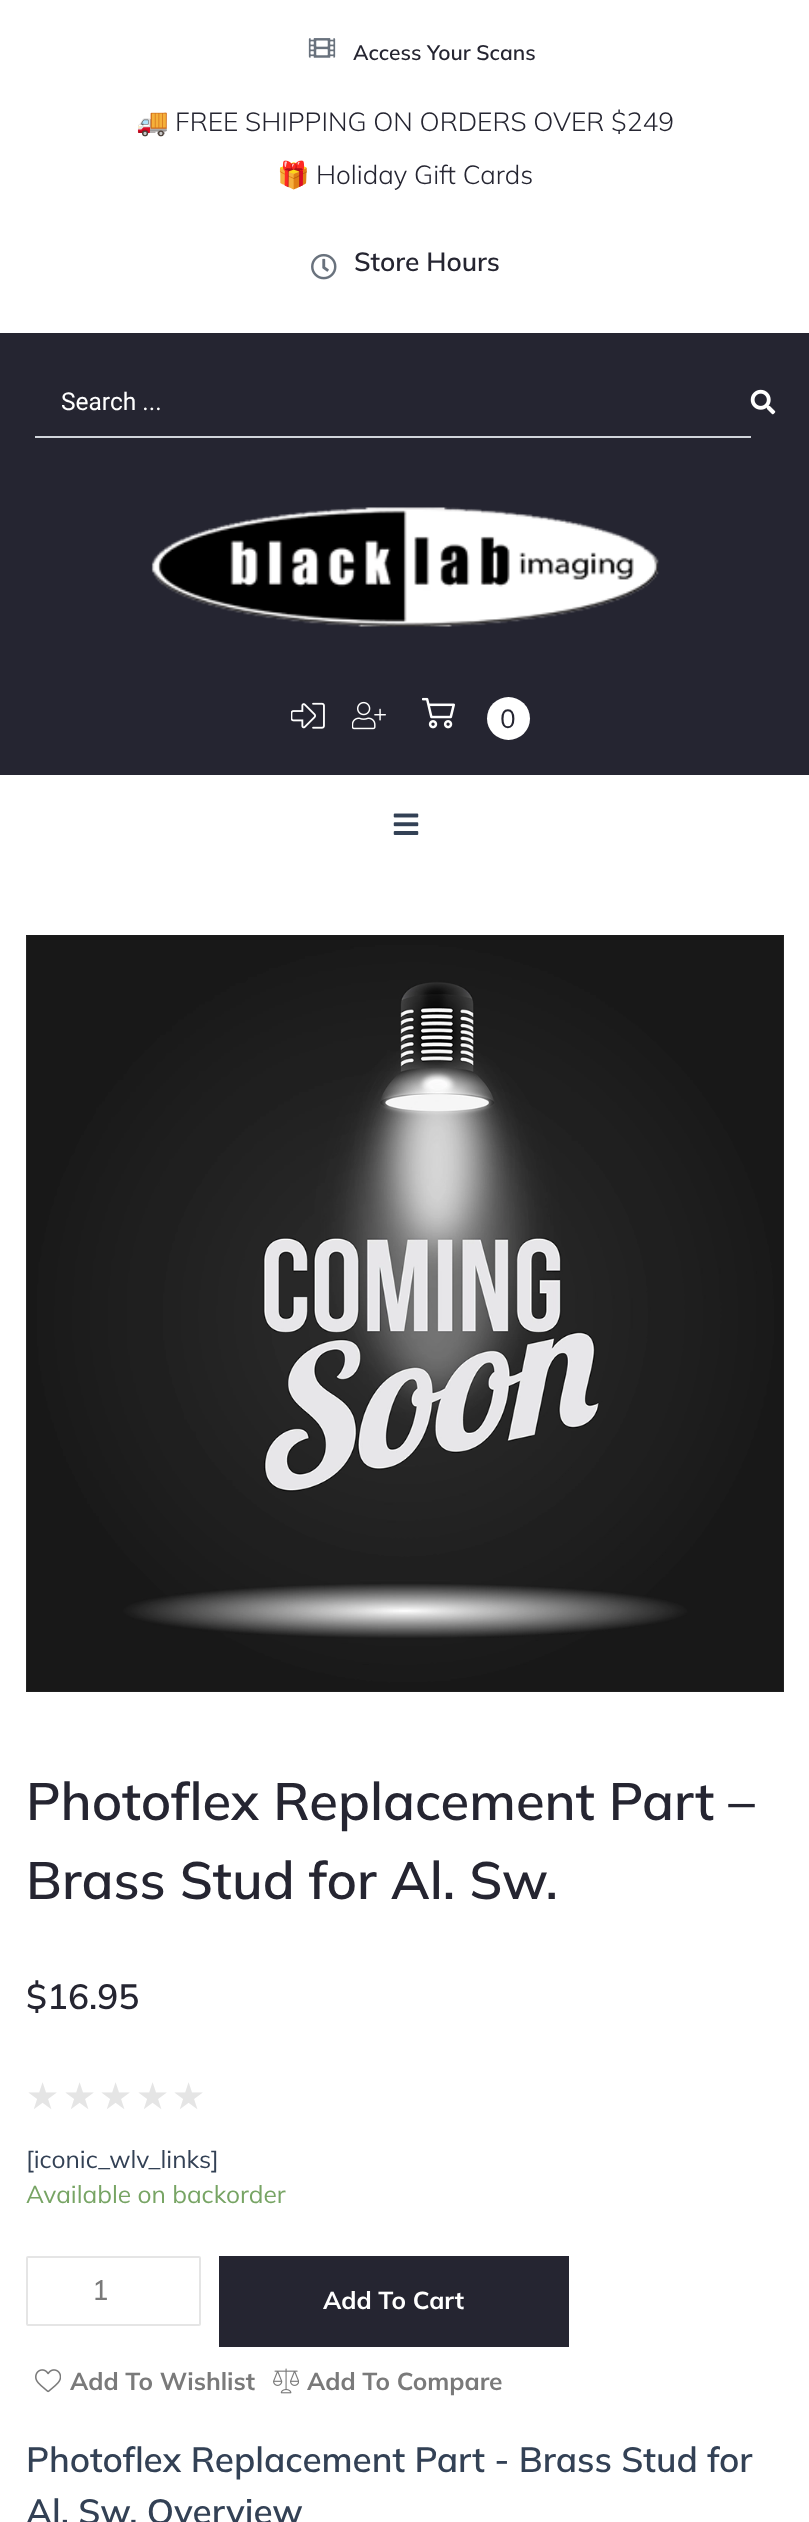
async function draw(canvas) {
  canvas.width = 809
  canvas.height = 2522
  const ctx = canvas.getContext('2d')
  ctx.miterLimit = 4
  ctx.fontKerning = 'normal'
  async function loadImage(src) {
    const img = new Image()
    img.src = src
    await img.decode()
    return img
  }

  ctx.fillStyle = '#fff'
  ctx.fillRect(0, 0, 809, 2522)
  ctx.drawImage(await loadImage('image0.png'), 308, 38, 28, 20)
  ctx.font = '600 21px Mulish'
  ctx.fillStyle = '#252531'
  ctx.fillText('Access Your Scans', 353, 60)
  ctx.font = '26.25px Noto Color Emoji'
  ctx.fillText('🚚', 136, 131)
  ctx.font = '300 26.25px Mulish'
  ctx.fillText('FREE SHIPPING ON ORDERS OVER $249', 175, 131)
  ctx.font = '26.25px Noto Color Emoji'
  ctx.fillText('🎁', 277, 184)
  ctx.font = '300 26.25px Mulish'
  ctx.fillText('Holiday Gift Cards', 316, 184)
  ctx.drawImage(await loadImage('image1.png'), 311, 253, 26, 27)
  ctx.font = '600 26.25px Mulish'
  ctx.fillText('Store Hours', 354, 271)
  ctx.fillRect(0, 333, 809, 442)
  ctx.fillStyle = '#d1d5db'
  ctx.fillRect(35, 436, 716, 2)
  ctx.font = '24.5px Roboto'
  ctx.fillStyle = '#fff'
  ctx.fillText('Search ...', 61, 410)
  ctx.drawImage(await loadImage('image2.png'), 750, 389, 26, 26)
  ctx.drawImage(await loadImage('image3.png'), 151, 507, 508, 120)
  ctx.drawImage(await loadImage('image4.png'), 291, 702, 34, 27)
  ctx.drawImage(await loadImage('image5.png'), 352, 701, 34, 29)
  ctx.drawImage(await loadImage('image6.png'), 422, 697, 33, 32)
  ctx.beginPath()
  ctx.arc(508.5, 718.5, 21.5, 0, 2 * Math.PI)
  ctx.fill()
  ctx.font = '26.25px Mulish'
  ctx.fillStyle = '#252531'
  ctx.fillText('0', 500, 728)
  ctx.drawImage(await loadImage('image7.png'), 393, 813, 26, 22)
  ctx.drawImage(await loadImage('image8.png'), 26, 935, 758, 757)
  ctx.font = '600 52.5px Mulish'
  ctx.fillText('Photoflex Replacement Part –', 26, 1820)
  ctx.fillText('Brass Stud for Al. Sw.', 26, 1899)
  ctx.font = '600 35px Mulish'
  ctx.fillText('$16.95', 26, 2009)
  ctx.font = '37px DejaVu Sans'
  ctx.fillStyle = '#e5e5e5'
  ctx.fillText('★', 26, 2109)
  ctx.fillText('★', 63, 2109)
  ctx.fillText('★', 99, 2109)
  ctx.fillText('★', 136, 2109)
  ctx.fillText('★', 172, 2109)
  ctx.font = '24.5px Mulish'
  ctx.fillStyle = '#334155'
  ctx.fillText('[iconic_wlv_links]', 26, 2168)
  ctx.fillStyle = '#77a464'
  ctx.fillText('Available on backorder', 26, 2203)
  ctx.beginPath()
  ctx.roundRect(27, 2257, 173, 68, 1)
  ctx.strokeStyle = '#e5e5e5'
  ctx.lineWidth = 2
  ctx.stroke()
  ctx.font = '500 28px Muli'
  ctx.fillStyle = '#7a7a7a'
  ctx.fillText('1', 92, 2300)
  ctx.fillStyle = '#252531'
  ctx.fillRect(219, 2256, 350, 91)
  ctx.font = 'bold 24.5px Mulish'
  ctx.fillStyle = '#fff'
  ctx.fillText('Add To Cart', 323, 2309)
  ctx.drawImage(await loadImage('image9.png'), 35, 2369, 26, 24)
  ctx.fillStyle = '#7a7a7a'
  ctx.fillText('Add To Wishlist', 70, 2390)
  ctx.drawImage(await loadImage('image10.png'), 273, 2368, 26, 26)
  ctx.fillText('Add To Compare', 307, 2390)
  ctx.font = '600 35px Mulish'
  ctx.fillStyle = '#334155'
  ctx.fillText('Photoflex Replacement Part - Brass Stud for', 26, 2472)
  ctx.fillText('Al. Sw. Overview', 26, 2524)
}

draw(document.querySelector('canvas'))
